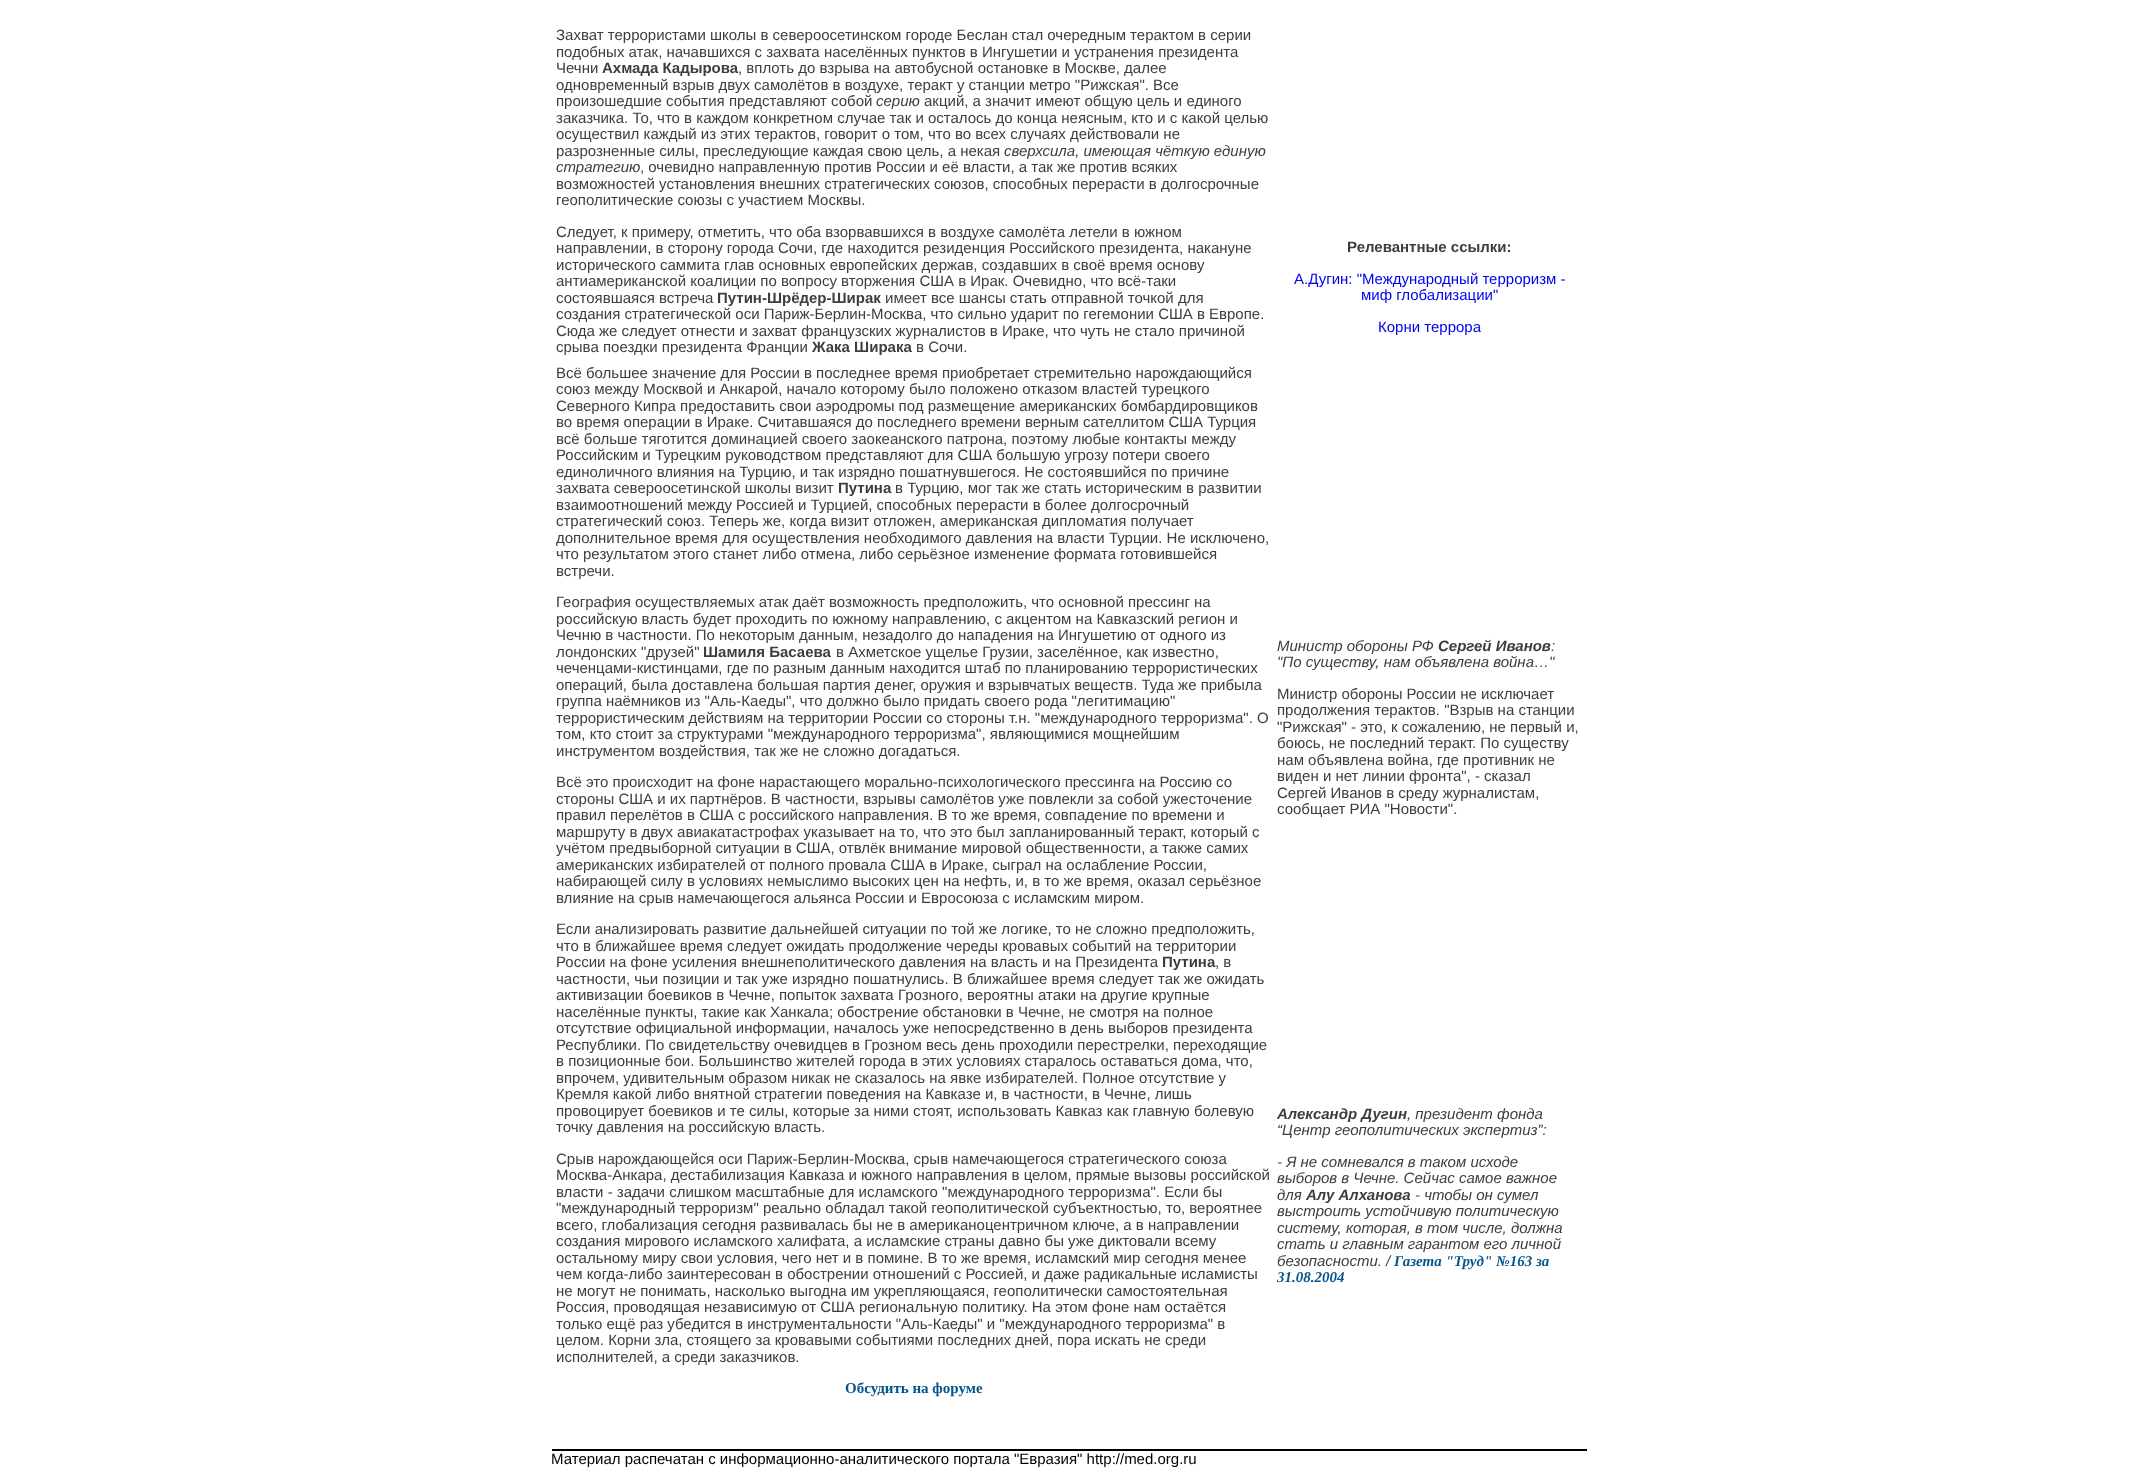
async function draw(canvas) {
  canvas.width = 2137
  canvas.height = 1472
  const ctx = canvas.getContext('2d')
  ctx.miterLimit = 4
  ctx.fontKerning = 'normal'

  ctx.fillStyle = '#fff'
  ctx.fillRect(0, 0, 2137, 1472)
  ctx.font = '15px Liberation Sans'
  ctx.fillStyle = '#3d3d3d'
  ctx.fillText('Захват террористами школы в североосетинском городе Беслан стал очередным терактом в серии', 556, 40)
  ctx.fillText('подобных атак, начавшихся с захвата населённых пунктов в Ингушетии и устранения президента', 556, 57)
  ctx.fillText('Чечни', 556, 73)
  ctx.font = 'bold 15px Liberation Sans'
  ctx.fillText('Ахмада Кадырова', 602, 73)
  ctx.font = '15px Liberation Sans'
  ctx.fillText(', вплоть до взрыва на автобусной остановке в Москве, далее', 738, 73)
  ctx.fillText('одновременный взрыв двух самолётов в воздухе, теракт у станции метро "Рижская". Все', 556, 90)
  ctx.fillText('произошедшие события представляют собой', 556, 106)
  ctx.font = 'italic 15px Liberation Sans'
  ctx.fillText('серию', 876, 106)
  ctx.font = '15px Liberation Sans'
  ctx.fillText('акций, а значит имеют общую цель и единого', 924, 106)
  ctx.fillText('заказчика. То, что в каждом конкретном случае так и осталось до конца неясным, кто и с какой целью', 556, 123)
  ctx.fillText('осуществил каждый из этих терактов, говорит о том, что во всех случаях действовали не', 556, 139)
  ctx.fillText('разрозненные силы, преследующие каждая свою цель, а некая', 556, 156)
  ctx.font = 'italic 15px Liberation Sans'
  ctx.fillText('сверхсила, имеющая чёткую единую', 1004, 156)
  ctx.fillText('стратегию', 556, 172)
  ctx.font = '15px Liberation Sans'
  ctx.fillText(', очевидно направленную против России и её власти, а так же против всяких', 640, 172)
  ctx.fillText('возможностей установления внешних стратегических союзов, способных перерасти в долгосрочные', 556, 189)
  ctx.fillText('геополитические союзы с участием Москвы.', 556, 205)
  ctx.fillText('Следует, к примеру, отметить, что оба взорвавшихся в воздухе самолёта летели в южном', 556, 237)
  ctx.fillText('направлении, в сторону города Сочи, где находится резиденция Российского президента, накануне', 556, 253)
  ctx.fillText('исторического саммита глав основных европейских держав, создавших в своё время основу', 556, 270)
  ctx.fillText('антиамериканской коалиции по вопросу вторжения США в Ирак. Очевидно, что всё-таки', 556, 286)
  ctx.fillText('состоявшаяся встреча', 556, 303)
  ctx.font = 'bold 15px Liberation Sans'
  ctx.fillText('Путин-Шрёдер-Ширак', 717, 303)
  ctx.font = '15px Liberation Sans'
  ctx.fillText('имеет все шансы стать отправной точкой для', 885, 303)
  ctx.fillText('создания стратегической оси Париж-Берлин-Москва, что сильно ударит по гегемонии США в Европе.', 556, 319)
  ctx.fillText('Сюда же следует отнести и захват французских журналистов в Ираке, что чуть не стало причиной', 556, 336)
  ctx.fillText('срыва поездки президента Франции', 556, 352)
  ctx.font = 'bold 15px Liberation Sans'
  ctx.fillText('Жака Ширака', 812, 352)
  ctx.font = '15px Liberation Sans'
  ctx.fillText('в Сочи.', 916, 352)
  ctx.font = 'bold 15px Liberation Sans'
  ctx.fillText('Релевантные ссылки:', 1347, 252)
  ctx.font = '15px Liberation Sans'
  ctx.fillStyle = '#00e'
  ctx.fillText('А.Дугин: "Международный терроризм -', 1294, 284)
  ctx.fillText('миф глобализации"', 1361, 300)
  ctx.fillText('Корни террора', 1378, 332)
  ctx.fillStyle = '#3d3d3d'
  ctx.fillText('Всё большее значение для России в последнее время приобретает стремительно нарождающийся', 556, 378)
  ctx.fillText('союз между Москвой и Анкарой, начало которому было положено отказом властей турецкого', 556, 394)
  ctx.fillText('Северного Кипра предоставить свои аэродромы под размещение американских бомбардировщиков', 556, 411)
  ctx.fillText('во время операции в Ираке. Считавшаяся до последнего времени верным сателлитом США Турция', 556, 427)
  ctx.fillText('всё больше тяготится доминацией своего заокеанского патрона, поэтому любые контакты между', 556, 444)
  ctx.fillText('Российским и Турецким руководством представляют для США большую угрозу потери своего', 556, 460)
  ctx.fillText('единоличного влияния на Турцию, и так изрядно пошатнувшегося. Не состоявшийся по причине', 556, 477)
  ctx.fillText('захвата североосетинской школы визит', 556, 493)
  ctx.font = 'bold 15px Liberation Sans'
  ctx.fillText('Путина', 838, 493)
  ctx.font = '15px Liberation Sans'
  ctx.fillText('в Турцию, мог так же стать историческим в развитии', 895, 493)
  ctx.fillText('взаимоотношений между Россией и Турцией, способных перерасти в более долгосрочный', 556, 510)
  ctx.fillText('стратегический союз. Теперь же, когда визит отложен, американская дипломатия получает', 556, 526)
  ctx.fillText('дополнительное время для осуществления необходимого давления на власти Турции. Не исключено,', 556, 543)
  ctx.fillText('что результатом этого станет либо отмена, либо серьёзное изменение формата готовившейся', 556, 559)
  ctx.fillText('встречи.', 556, 576)
  ctx.fillText('География осуществляемых атак даёт возможность предположить, что основной прессинг на', 556, 607)
  ctx.fillText('российскую власть будет проходить по южному направлению, с акцентом на Кавказский регион и', 556, 624)
  ctx.fillText('Чечню в частности. По некоторым данным, незадолго до нападения на Ингушетию от одного из', 556, 640)
  ctx.fillText('лондонских "друзей"', 556, 657)
  ctx.font = 'bold 15px Liberation Sans'
  ctx.fillText('Шамиля Басаева', 703, 657)
  ctx.font = '15px Liberation Sans'
  ctx.fillText('в Ахметское ущелье Грузии, заселённое, как известно,', 836, 657)
  ctx.fillText('чеченцами-кистинцами, где по разным данным находится штаб по планированию террористических', 556, 673)
  ctx.fillText('операций, была доставлена большая партия денег, оружия и взрывчатых веществ. Туда же прибыла', 556, 690)
  ctx.fillText('группа наёмников из "Аль-Каеды", что должно было придать своего рода "легитимацию"', 556, 706)
  ctx.fillText('террористическим действиям на территории России со стороны т.н. "международного терроризма". О', 556, 723)
  ctx.fillText('том, кто стоит за структурами "международного терроризма", являющимися мощнейшим', 556, 739)
  ctx.fillText('инструментом воздействия, так же не сложно догадаться.', 556, 756)
  ctx.fillText('Всё это происходит на фоне нарастающего морально-психологического прессинга на Россию со', 556, 787)
  ctx.fillText('стороны США и их партнёров. В частности, взрывы самолётов уже повлекли за собой ужесточение', 556, 804)
  ctx.fillText('правил перелётов в США с российского направления. В то же время, совпадение по времени и', 556, 820)
  ctx.fillText('маршруту в двух авиакатастрофах указывает на то, что это был запланированный теракт, который с', 556, 837)
  ctx.fillText('учётом предвыборной ситуации в США, отвлёк внимание мировой общественности, а также самих', 556, 853)
  ctx.fillText('американских избирателей от полного провала США в Ираке, сыграл на ослабление России,', 556, 870)
  ctx.fillText('набирающей силу в условиях немыслимо высоких цен на нефть, и, в то же время, оказал серьёзное', 556, 886)
  ctx.fillText('влияние на срыв намечающегося альянса России и Евросоюза с исламским миром.', 556, 903)
  ctx.fillText('Если анализировать развитие дальнейшей ситуации по той же логике, то не сложно предположить,', 556, 934)
  ctx.fillText('что в ближайшее время следует ожидать продолжение череды кровавых событий на территории', 556, 951)
  ctx.fillText('России на фоне усиления внешнеполитического давления на власть и на Президента', 556, 967)
  ctx.font = 'bold 15px Liberation Sans'
  ctx.fillText('Путина', 1162, 967)
  ctx.font = '15px Liberation Sans'
  ctx.fillText(', в', 1215, 967)
  ctx.fillText('частности, чьи позиции и так уже изрядно пошатнулись. В ближайшее время следует так же ожидать', 556, 984)
  ctx.fillText('активизации боевиков в Чечне, попыток захвата Грозного, вероятны атаки на другие крупные', 556, 1000)
  ctx.fillText('населённые пункты, такие как Ханкала; обострение обстановки в Чечне, не смотря на полное', 556, 1017)
  ctx.fillText('отсутствие официальной информации, началось уже непосредственно в день выборов президента', 556, 1033)
  ctx.fillText('Республики. По свидетельству очевидцев в Грозном весь день проходили перестрелки, переходящие', 556, 1050)
  ctx.fillText('в позиционные бои. Большинство жителей города в этих условиях старалось оставаться дома, что,', 556, 1066)
  ctx.fillText('впрочем, удивительным образом никак не сказалось на явке избирателей. Полное отсутствие у', 556, 1083)
  ctx.fillText('Кремля какой либо внятной стратегии поведения на Кавказе и, в частности, в Чечне, лишь', 556, 1099)
  ctx.fillText('провоцирует боевиков и те силы, которые за ними стоят, использовать Кавказ как главную болевую', 556, 1116)
  ctx.fillText('точку давления на российскую власть.', 556, 1132)
  ctx.fillText('Срыв нарождающейся оси Париж-Берлин-Москва, срыв намечающегося стратегического союза', 556, 1164)
  ctx.fillText('Москва-Анкара, дестабилизация Кавказа и южного направления в целом, прямые вызовы российской', 556, 1180)
  ctx.fillText('власти - задачи слишком масштабные для исламского "международного терроризма". Если бы', 556, 1197)
  ctx.fillText('"международный терроризм" реально обладал такой геополитической субъектностью, то, вероятнее', 556, 1213)
  ctx.fillText('всего, глобализация сегодня развивалась бы не в американоцентричном ключе, а в направлении', 556, 1230)
  ctx.fillText('создания мирового исламского халифата, а исламские страны давно бы уже диктовали всему', 556, 1246)
  ctx.fillText('остальному миру свои условия, чего нет и в помине. В то же время, исламский мир сегодня менее', 556, 1263)
  ctx.fillText('чем когда-либо заинтересован в обострении отношений с Россией, и даже радикальные исламисты', 556, 1279)
  ctx.fillText('не могут не понимать, насколько выгодна им укрепляющаяся, геополитически самостоятельная', 556, 1296)
  ctx.fillText('Россия, проводящая независимую от США региональную политику. На этом фоне нам остаётся', 556, 1312)
  ctx.fillText('только ещё раз убедится в инструментальности "Аль-Каеды" и "международного терроризма" в', 556, 1329)
  ctx.fillText('целом. Корни зла, стоящего за кровавыми событиями последних дней, пора искать не среди', 556, 1345)
  ctx.fillText('исполнителей, а среди заказчиков.', 556, 1362)
  ctx.font = 'bold 15px Liberation Serif'
  ctx.fillStyle = '#05558e'
  ctx.fillText('Обсудить на форуме', 845, 1393)
  ctx.font = 'italic 15px Liberation Sans'
  ctx.fillStyle = '#3d3d3d'
  ctx.fillText('Министр обороны РФ', 1277, 651)
  ctx.font = 'italic bold 15px Liberation Sans'
  ctx.fillText('Сергей Иванов', 1438, 651)
  ctx.font = 'italic 15px Liberation Sans'
  ctx.fillText(':', 1551, 651)
  ctx.fillText('"По существу, нам объявлена война…"', 1277, 667)
  ctx.font = '15px Liberation Sans'
  ctx.fillText('Министр обороны России не исключает', 1277, 699)
  ctx.fillText('продолжения терактов. "Взрыв на станции', 1277, 715)
  ctx.fillText('"Рижская" - это, к сожалению, не первый и,', 1277, 732)
  ctx.fillText('боюсь, не последний теракт. По существу', 1277, 748)
  ctx.fillText('нам объявлена война, где противник не', 1277, 765)
  ctx.fillText('виден и нет линии фронта", - сказал', 1277, 781)
  ctx.fillText('Сергей Иванов в среду журналистам,', 1277, 798)
  ctx.fillText('сообщает РИА "Новости".', 1277, 814)
  ctx.font = 'italic bold 15px Liberation Sans'
  ctx.fillText('Александр Дугин', 1277, 1119)
  ctx.font = 'italic 15px Liberation Sans'
  ctx.fillText(', президент фонда', 1407, 1119)
  ctx.fillText('“Центр геополитических экспертиз”:', 1277, 1135)
  ctx.fillText('- Я не сомневался в таком исходе', 1277, 1167)
  ctx.fillText('выборов в Чечне. Сейчас самое важное', 1277, 1183)
  ctx.fillText('для', 1277, 1200)
  ctx.font = 'italic bold 15px Liberation Sans'
  ctx.fillText('Алу Алханова', 1306, 1200)
  ctx.font = 'italic 15px Liberation Sans'
  ctx.fillText('- чтобы он сумел', 1415, 1200)
  ctx.fillText('выстроить устойчивую политическую', 1277, 1216)
  ctx.fillText('систему, которая, в том числе, должна', 1277, 1233)
  ctx.fillText('стать и главным гарантом его личной', 1277, 1249)
  ctx.fillText('безопасности. /', 1277, 1266)
  ctx.font = 'italic bold 15px Liberation Serif'
  ctx.fillStyle = '#05558e'
  ctx.fillText('Газета "Труд" №163 за', 1394, 1266)
  ctx.fillText('31.08.2004', 1277, 1282)
  ctx.fillStyle = '#000'
  ctx.fillRect(552, 1449, 1035, 2)
  ctx.font = '15px Liberation Sans'
  ctx.fillText('Материал распечатан с информационно-аналитического портала "Евразия" http://med.org.ru', 551, 1464)
}

draw(document.querySelector('canvas'))
